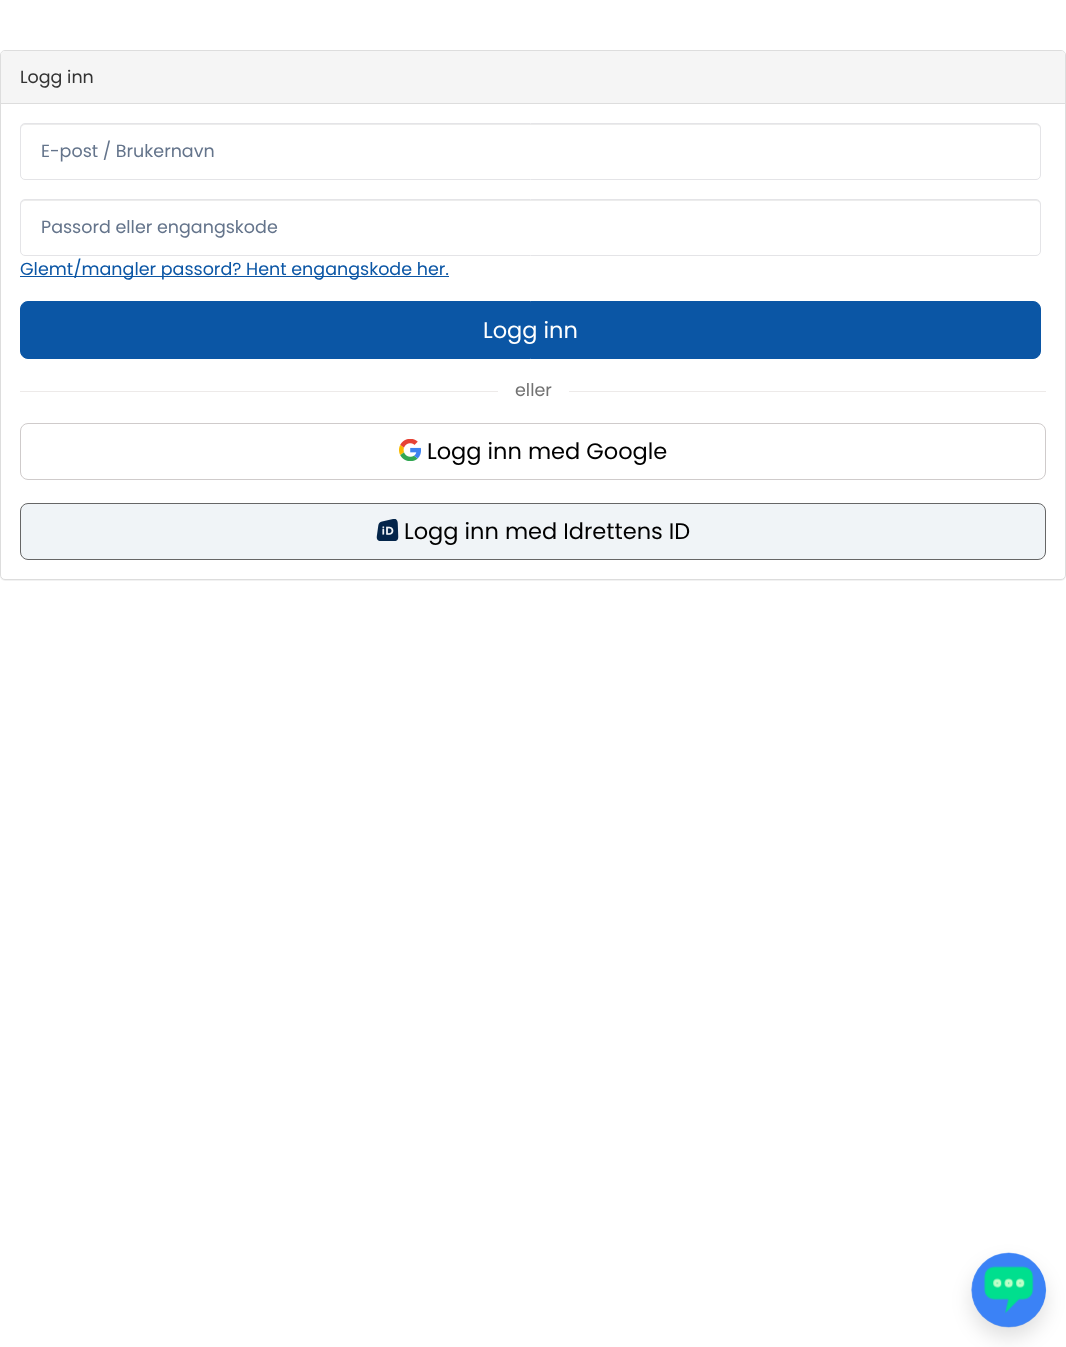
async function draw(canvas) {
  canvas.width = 1066
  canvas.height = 1347
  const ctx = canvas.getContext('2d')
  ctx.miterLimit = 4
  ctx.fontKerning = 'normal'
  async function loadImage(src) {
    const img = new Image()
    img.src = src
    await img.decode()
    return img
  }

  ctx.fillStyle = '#fff'
  ctx.fillRect(0, 0, 1066, 1347)
  ctx.fillStyle = '#0000000d'
  ctx.filter = 'blur(0.5px)'
  ctx.beginPath()
  ctx.roundRect(0, 51, 1066, 530, 5)
  ctx.fill()
  ctx.filter = 'none'
  ctx.fillStyle = '#fff'
  ctx.beginPath()
  ctx.roundRect(0.5, 50.5, 1065, 529, 4.5)
  ctx.fill()
  ctx.strokeStyle = '#ddd'
  ctx.stroke()
  ctx.fillStyle = '#f5f5f5'
  ctx.beginPath()
  ctx.roundRect(1, 51, 1064, 52, [4, 4, 0, 0])
  ctx.fill()
  ctx.fillStyle = '#ddd'
  ctx.fillRect(1, 103, 1064, 1)
  ctx.font = '17.5px Poppins'
  ctx.fillStyle = '#333'
  ctx.fillText('Logg inn', 20, 83)
  ctx.fillStyle = '#ececec'
  ctx.beginPath()
  ctx.moveTo(25, 125)
  ctx.lineTo(1036, 125)
  ctx.bezierCurveTo(1038, 125, 1040, 127, 1040, 129)
  ctx.bezierCurveTo(1040, 126, 1039, 124, 1036, 124)
  ctx.lineTo(25, 124)
  ctx.bezierCurveTo(22, 124, 21, 126, 21, 129)
  ctx.bezierCurveTo(21, 127, 23, 125, 25, 125)
  ctx.closePath()
  ctx.fill()
  ctx.beginPath()
  ctx.roundRect(20.5, 123.5, 1020, 56, 4.5)
  ctx.strokeStyle = '#e4e4e7'
  ctx.stroke()
  ctx.fillStyle = '#64748b'
  ctx.fillText('E-post / Brukernavn', 41, 157)
  ctx.fillStyle = '#ececec'
  ctx.beginPath()
  ctx.moveTo(25, 201)
  ctx.lineTo(1036, 201)
  ctx.bezierCurveTo(1038, 201, 1040, 203, 1040, 205)
  ctx.bezierCurveTo(1040, 202, 1039, 200, 1036, 200)
  ctx.lineTo(25, 200)
  ctx.bezierCurveTo(22, 200, 21, 202, 21, 205)
  ctx.bezierCurveTo(21, 203, 23, 201, 25, 201)
  ctx.closePath()
  ctx.fill()
  ctx.beginPath()
  ctx.roundRect(20.5, 199.5, 1020, 56, 4.5)
  ctx.stroke()
  ctx.fillStyle = '#64748b'
  ctx.fillText('Passord eller engangskode', 41, 233)
  ctx.fillStyle = '#0b56a5'
  ctx.fillRect(20, 276, 429, 1)
  ctx.fillText('Glemt/mangler passord? Hent engangskode her.', 20, 275)
  ctx.beginPath()
  ctx.roundRect(20.5, 301.5, 1020, 57, 7.5)
  ctx.fill()
  ctx.strokeStyle = '#0b56a5'
  ctx.stroke()
  ctx.font = '22.5px Poppins'
  ctx.fillStyle = '#fff'
  ctx.fillText('Logg inn', 483, 338)
  ctx.fillStyle = '#edeae9'
  ctx.fillRect(20, 391, 478, 1)
  ctx.font = '17.5px Poppins'
  ctx.fillStyle = '#727272'
  ctx.fillText('eller', 515, 396)
  ctx.fillStyle = '#edeae9'
  ctx.fillRect(569, 391, 477, 1)
  ctx.beginPath()
  ctx.roundRect(20.5, 423.5, 1025, 56, 7.5)
  ctx.strokeStyle = '#cfcbcb'
  ctx.stroke()
  ctx.drawImage(await loadImage('image0.png'), 399, 439, 22, 22)
  ctx.font = '22.5px Poppins'
  ctx.fillStyle = '#000'
  ctx.fillText('Logg inn med Google', 427, 459)
  ctx.fillStyle = '#f0f4f7'
  ctx.beginPath()
  ctx.roundRect(20.5, 503.5, 1025, 56, 7.5)
  ctx.fill()
  ctx.strokeStyle = '#666'
  ctx.stroke()
  ctx.drawImage(await loadImage('image1.png'), 376, 519, 23, 22)
  ctx.fillStyle = '#000'
  ctx.fillText('Logg inn med Idrettens ID', 404, 539)
  ctx.fillStyle = '#0000001f'
  ctx.filter = 'blur(10px)'
  ctx.beginPath()
  ctx.roundRect(971, 1263, 75, 75, 37.5)
  ctx.fill()
  ctx.filter = 'none'
  ctx.drawImage(await loadImage('image2.png'), 971, 1252, 76, 76)
}

draw(document.querySelector('canvas'))
